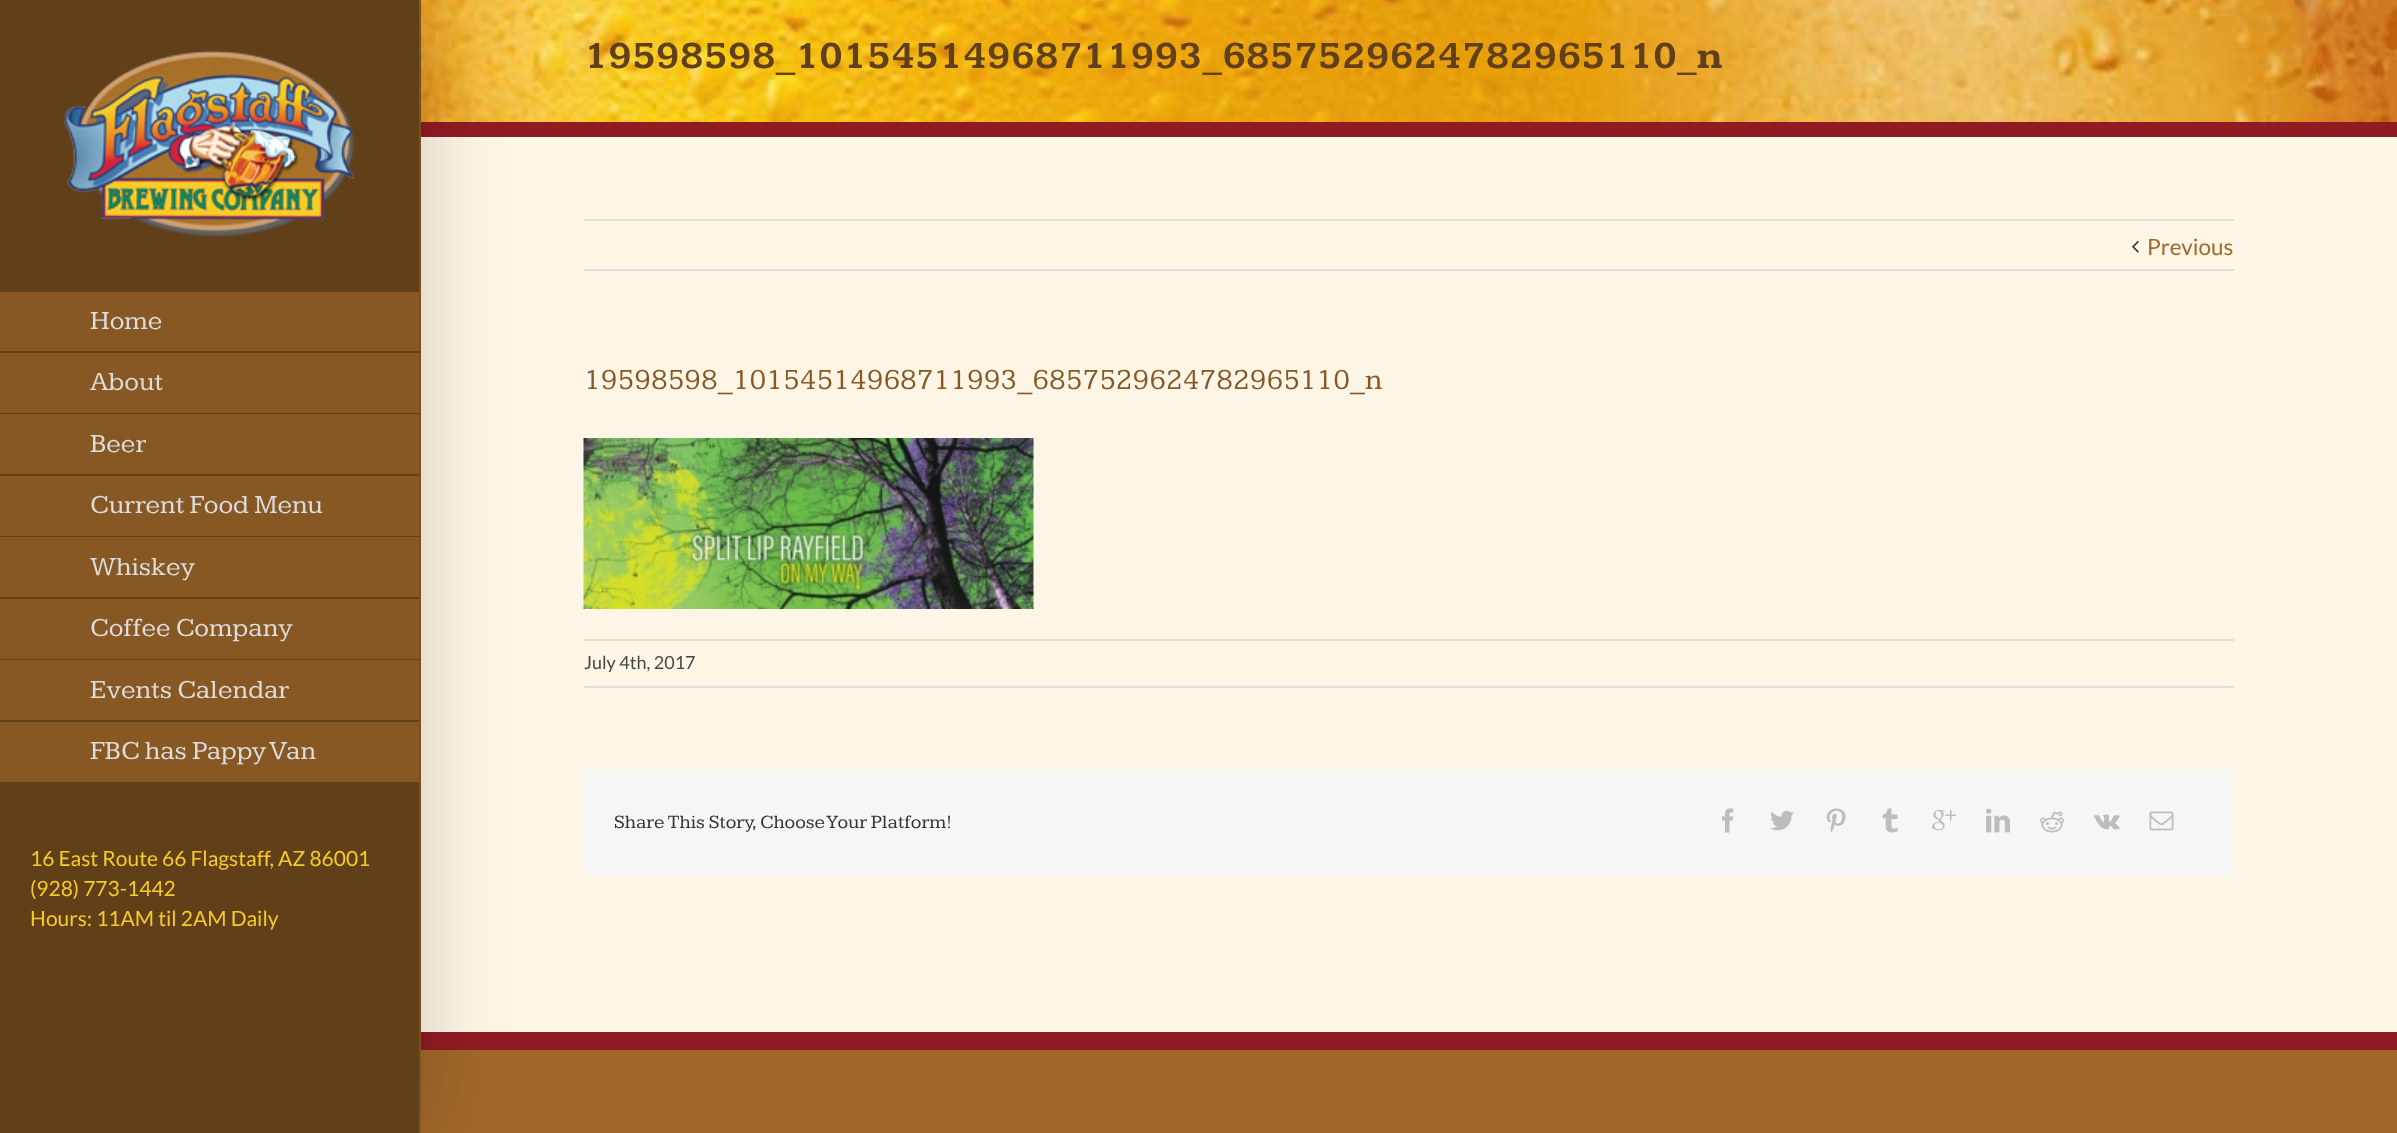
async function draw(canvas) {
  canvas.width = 2397
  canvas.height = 1133
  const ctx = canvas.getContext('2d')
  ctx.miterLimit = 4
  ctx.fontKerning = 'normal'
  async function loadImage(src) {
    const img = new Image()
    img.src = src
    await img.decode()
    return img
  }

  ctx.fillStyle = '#fdf5e6'
  ctx.fillRect(0, 0, 2397, 1133)
  ctx.drawImage(await loadImage('image0.png'), 421, 0, 1976, 122)
  ctx.fillStyle = '#911b23'
  ctx.fillRect(421, 122, 1976, 15)
  ctx.font = 'bold 39px Kameron'
  ctx.fillStyle = '#613f19'
  ctx.fillText('19598598_10154514968711993_6857529624782965110_n', 584, 68)
  ctx.fillRect(0, 0, 419, 1133)
  ctx.fillStyle = '#875823'
  ctx.fillRect(419, 0, 2, 1133)
  ctx.drawImage(await loadImage('image1.png'), 64, 50, 291, 188)
  ctx.fillRect(0, 292, 419, 59)
  ctx.fillRect(0, 353, 419, 60)
  ctx.fillRect(0, 414, 419, 60)
  ctx.fillRect(0, 476, 419, 60)
  ctx.fillRect(0, 537, 419, 60)
  ctx.fillRect(0, 599, 419, 60)
  ctx.fillRect(0, 660, 419, 60)
  ctx.fillRect(0, 722, 419, 60)
  ctx.fillStyle = '#a16829'
  ctx.fillRect(421, 1050, 1976, 83)
  ctx.fillStyle = '#911b23'
  ctx.fillRect(421, 1032, 1976, 18)
  ctx.save()
  ctx.beginPath()
  ctx.moveTo(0, 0)
  ctx.lineTo(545, 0)
  ctx.lineTo(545, 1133)
  ctx.lineTo(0, 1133)
  ctx.closePath()
  ctx.moveTo(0, 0)
  ctx.lineTo(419, 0)
  ctx.lineTo(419, 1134)
  ctx.lineTo(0, 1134)
  ctx.closePath()
  ctx.clip('evenodd')
  ctx.fillStyle = '#00000024'
  ctx.filter = 'blur(37.5px)'
  ctx.beginPath()
  ctx.rect(18, 3, 413, 1128)
  ctx.fill()
  ctx.filter = 'none'
  ctx.restore()
  ctx.font = '27px Kameron'
  ctx.fillStyle = '#ddd'
  ctx.fillText('Home', 90, 329)
  ctx.fillText('About', 90, 390)
  ctx.fillText('Beer', 90, 452)
  ctx.fillText('Current Food Menu', 90, 513)
  ctx.fillText('Whiskey', 90, 575)
  ctx.fillText('Coffee Company', 90, 636)
  ctx.fillText('Events Calendar', 90, 698)
  ctx.fillText('FBC has Pappy Van', 90, 759)
  ctx.font = '21px Lato'
  ctx.fillStyle = '#f5cc27'
  ctx.fillText('16 East Route 66 Flagstaff, AZ 86001', 30, 866)
  ctx.fillText('(928) 773-1442', 30, 896)
  ctx.fillText('Hours: 11AM til 2AM Daily', 30, 926)
  ctx.fillStyle = '#e0dede'
  ctx.fillRect(584, 219, 1650, 2)
  ctx.fillRect(584, 269, 1650, 2)
  ctx.drawImage(await loadImage('image2.png'), 2132, 240, 7, 13)
  ctx.font = '22.5px Lato'
  ctx.fillStyle = '#a16829'
  ctx.fillText('Previous', 2147, 255)
  ctx.font = '30px Kameron'
  ctx.fillStyle = '#875823'
  ctx.fillText('19598598_10154514968711993_6857529624782965110_n', 584, 389)
  ctx.drawImage(await loadImage('image3.png'), 583, 438, 451, 171)
  ctx.fillStyle = '#e0dede'
  ctx.fillRect(584, 639, 1650, 2)
  ctx.fillRect(584, 686, 1650, 2)
  ctx.font = '18px Lato'
  ctx.fillStyle = '#474747'
  ctx.fillText('July 4th, 2017', 584, 669)
  ctx.fillStyle = '#f6f6f6'
  ctx.fillRect(584, 770, 1650, 105)
  ctx.font = '19.5px Kameron'
  ctx.fillStyle = '#333'
  ctx.fillText('Share This Story, Choose Your Platform!', 614, 828)
  ctx.drawImage(await loadImage('image4.png'), 1722, 808, 12, 25)
  ctx.drawImage(await loadImage('image5.png'), 1770, 810, 24, 21)
  ctx.drawImage(await loadImage('image6.png'), 1826, 808, 20, 25)
  ctx.drawImage(await loadImage('image7.png'), 1882, 808, 16, 25)
  ctx.drawImage(await loadImage('image8.png'), 1932, 810, 24, 21)
  ctx.drawImage(await loadImage('image9.png'), 1986, 808, 24, 25)
  ctx.drawImage(await loadImage('image10.png'), 2040, 811, 24, 22)
  ctx.drawImage(await loadImage('image11.png'), 2094, 814, 26, 16)
  ctx.drawImage(await loadImage('image12.png'), 2149, 811, 25, 20)
}

draw(document.querySelector('canvas'))
